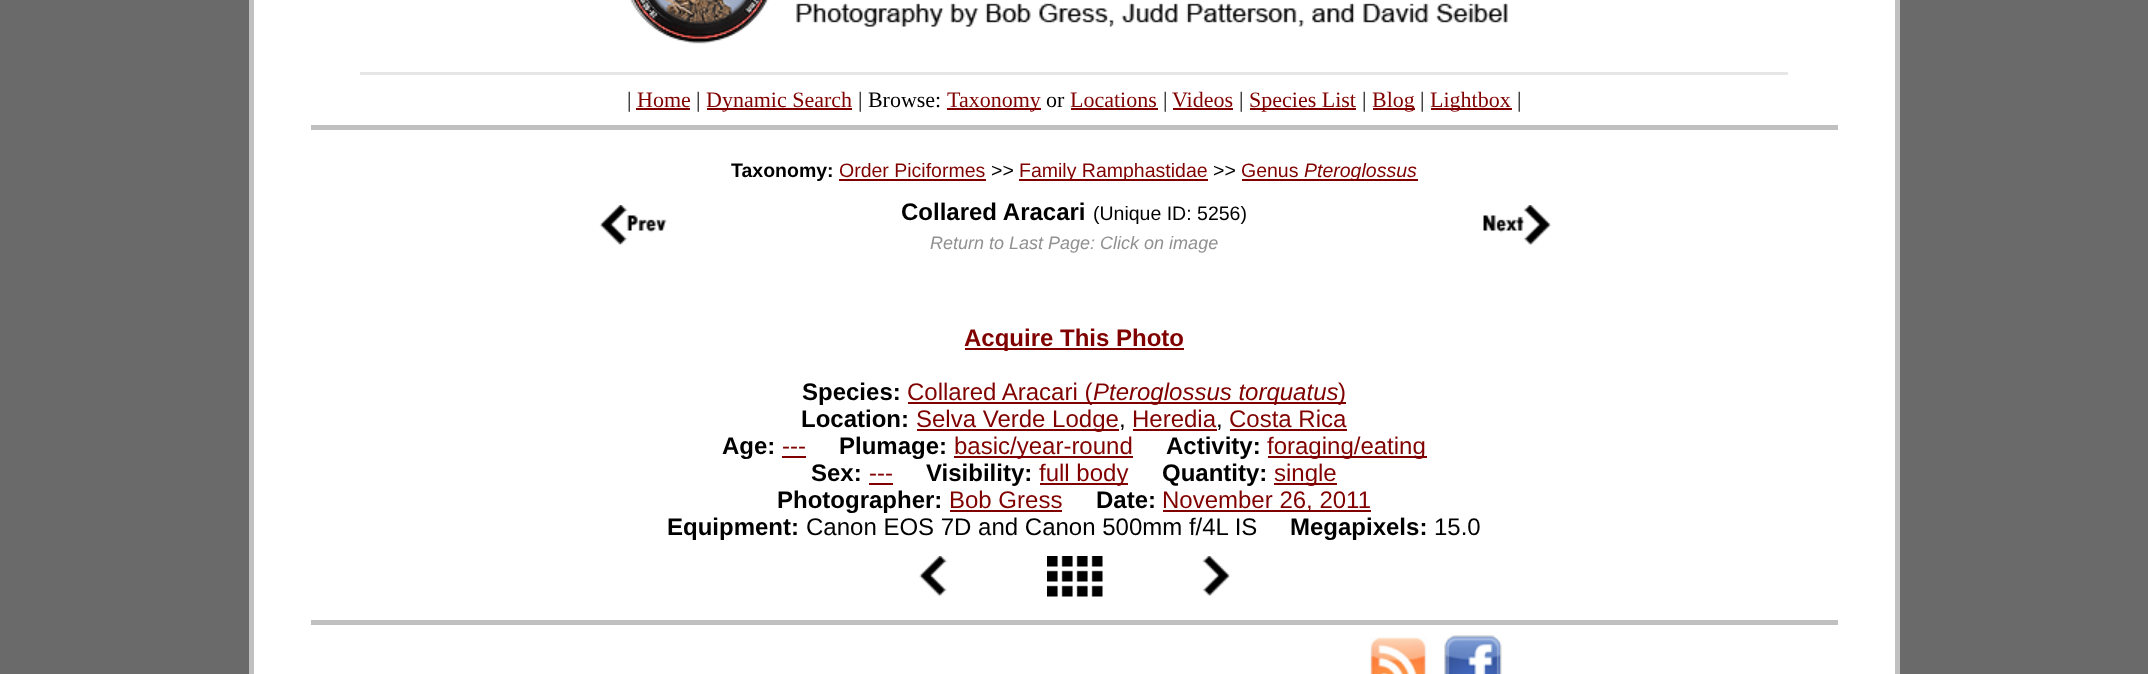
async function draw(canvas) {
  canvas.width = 2148
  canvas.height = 674
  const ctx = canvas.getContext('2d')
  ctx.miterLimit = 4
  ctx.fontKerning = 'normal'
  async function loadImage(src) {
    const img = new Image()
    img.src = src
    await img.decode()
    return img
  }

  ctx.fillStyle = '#6a6a6a'
  ctx.fillRect(0, 0, 2148, 674)
  ctx.fillStyle = '#fff'
  ctx.fillRect(254, 0, 1641, 674)
  ctx.fillStyle = '#c0c0c0'
  ctx.fillRect(1895, 0, 5, 674)
  ctx.fillRect(249, 0, 5, 674)
  ctx.drawImage(await loadImage('image0.png'), 630, 0, 878, 44)
  ctx.fillStyle = '#e6e6e6'
  ctx.fillRect(360, 72, 1428, 3)
  ctx.font = '22px Liberation Serif'
  ctx.fillStyle = '#000'
  ctx.fillText('|', 627, 107)
  ctx.fillStyle = '#800000'
  ctx.fillText('Home', 637, 107)
  ctx.fillRect(636, 108, 54, 2)
  ctx.fillStyle = '#000'
  ctx.fillText('|', 696, 107)
  ctx.fillStyle = '#800000'
  ctx.fillRect(707, 108, 145, 2)
  ctx.fillText('Dynamic Search', 706, 107)
  ctx.fillStyle = '#000'
  ctx.fillText('| Browse:', 858, 107)
  ctx.fillStyle = '#800000'
  ctx.fillRect(947, 108, 94, 2)
  ctx.fillText('Taxonomy', 947, 107)
  ctx.fillStyle = '#000'
  ctx.fillText('or', 1046, 107)
  ctx.fillStyle = '#800000'
  ctx.fillText('Locations', 1070, 107)
  ctx.fillRect(1071, 108, 87, 2)
  ctx.fillStyle = '#000'
  ctx.fillText('|', 1163, 107)
  ctx.fillStyle = '#800000'
  ctx.fillText('Videos', 1172, 107)
  ctx.fillRect(1173, 108, 60, 2)
  ctx.fillStyle = '#000'
  ctx.fillText('|', 1239, 107)
  ctx.fillStyle = '#800000'
  ctx.fillRect(1250, 108, 106, 2)
  ctx.fillText('Species List', 1249, 107)
  ctx.fillStyle = '#000'
  ctx.fillText('|', 1362, 107)
  ctx.fillStyle = '#800000'
  ctx.fillRect(1373, 108, 42, 2)
  ctx.fillText('Blog', 1372, 107)
  ctx.fillStyle = '#000'
  ctx.fillText('|', 1420, 107)
  ctx.fillStyle = '#800000'
  ctx.fillRect(1431, 108, 81, 2)
  ctx.fillText('Lightbox', 1430, 107)
  ctx.fillStyle = '#000'
  ctx.fillText('|', 1517, 107)
  ctx.fillStyle = '#c0c0c0'
  ctx.fillRect(311, 125, 1527, 5)
  ctx.font = 'bold 19.5px Liberation Sans'
  ctx.fillStyle = '#000'
  ctx.fillText('Taxonomy:', 731, 177)
  ctx.font = '19.5px Liberation Sans'
  ctx.fillStyle = '#800000'
  ctx.fillText('Order Piciformes', 839, 177)
  ctx.fillRect(839, 179, 147, 2)
  ctx.fillStyle = '#000'
  ctx.fillText('>>', 991, 177)
  ctx.fillStyle = '#800000'
  ctx.fillRect(1019, 179, 189, 2)
  ctx.fillText('Family Ramphastidae', 1019, 177)
  ctx.fillStyle = '#000'
  ctx.fillText('>>', 1213, 177)
  ctx.fillStyle = '#800000'
  ctx.fillText('Genus', 1241, 177)
  ctx.fillRect(1242, 179, 176, 2)
  ctx.font = 'italic 19.5px Liberation Sans'
  ctx.fillText('Pteroglossus', 1304, 177)
  ctx.drawImage(await loadImage('image1.png'), 599, 205, 68, 41)
  ctx.font = 'bold 24px Liberation Sans'
  ctx.fillStyle = '#000'
  ctx.fillText('Collared Aracari', 901, 220)
  ctx.font = '19.5px Liberation Sans'
  ctx.fillText('(Unique ID: 5256)', 1093, 220)
  ctx.font = 'italic 18px Liberation Sans'
  ctx.fillStyle = '#919191'
  ctx.fillText('Return to Last Page: Click on image', 930, 249)
  ctx.drawImage(await loadImage('image2.png'), 1483, 205, 69, 41)
  ctx.fillStyle = '#800000'
  ctx.fillRect(965, 348, 219, 2)
  ctx.font = 'bold 24px Liberation Sans'
  ctx.fillText('Acquire This Photo', 964, 346)
  ctx.fillStyle = '#000'
  ctx.fillText('Species:', 802, 400)
  ctx.fillStyle = '#800000'
  ctx.fillRect(908, 402, 184, 2)
  ctx.font = '24px Liberation Sans'
  ctx.fillText('Collared Aracari (', 907, 400)
  ctx.fillRect(1092, 402, 254, 2)
  ctx.font = 'italic 24px Liberation Sans'
  ctx.fillText('Pteroglossus torquatus', 1093, 400)
  ctx.font = '24px Liberation Sans'
  ctx.fillText(')', 1338, 400)
  ctx.font = 'bold 24px Liberation Sans'
  ctx.fillStyle = '#000'
  ctx.fillText('Location:', 801, 427)
  ctx.fillStyle = '#800000'
  ctx.fillRect(917, 429, 202, 2)
  ctx.font = '24px Liberation Sans'
  ctx.fillText('Selva Verde Lodge', 916, 427)
  ctx.fillStyle = '#000'
  ctx.fillText(',', 1119, 427)
  ctx.fillStyle = '#800000'
  ctx.fillText('Heredia', 1132, 427)
  ctx.fillRect(1133, 429, 84, 2)
  ctx.fillStyle = '#000'
  ctx.fillText(',', 1216, 427)
  ctx.fillStyle = '#800000'
  ctx.fillText('Costa Rica', 1229, 427)
  ctx.fillRect(1230, 429, 117, 2)
  ctx.font = 'bold 24px Liberation Sans'
  ctx.fillStyle = '#000'
  ctx.fillText('Age:', 722, 454)
  ctx.font = '24px Liberation Sans'
  ctx.fillStyle = '#800000'
  ctx.fillText('---', 782, 454)
  ctx.fillRect(782, 456, 24, 2)
  ctx.font = 'bold 24px Liberation Sans'
  ctx.fillStyle = '#000'
  ctx.fillText('Plumage:', 839, 454)
  ctx.fillStyle = '#800000'
  ctx.fillRect(954, 456, 179, 2)
  ctx.font = '24px Liberation Sans'
  ctx.fillText('basic/year-round', 954, 454)
  ctx.font = 'bold 24px Liberation Sans'
  ctx.fillStyle = '#000'
  ctx.fillText('Activity:', 1166, 454)
  ctx.fillStyle = '#800000'
  ctx.fillRect(1268, 456, 159, 2)
  ctx.font = '24px Liberation Sans'
  ctx.fillText('foraging/eating', 1267, 454)
  ctx.font = 'bold 24px Liberation Sans'
  ctx.fillStyle = '#000'
  ctx.fillText('Sex:', 811, 481)
  ctx.font = '24px Liberation Sans'
  ctx.fillStyle = '#800000'
  ctx.fillText('---', 869, 481)
  ctx.fillRect(869, 483, 24, 2)
  ctx.font = 'bold 24px Liberation Sans'
  ctx.fillStyle = '#000'
  ctx.fillText('Visibility:', 926, 481)
  ctx.fillStyle = '#800000'
  ctx.fillRect(1040, 483, 88, 2)
  ctx.font = '24px Liberation Sans'
  ctx.fillText('full body', 1039, 481)
  ctx.font = 'bold 24px Liberation Sans'
  ctx.fillStyle = '#000'
  ctx.fillText('Quantity:', 1162, 481)
  ctx.fillStyle = '#800000'
  ctx.fillRect(1274, 483, 63, 2)
  ctx.font = '24px Liberation Sans'
  ctx.fillText('single', 1274, 481)
  ctx.font = 'bold 24px Liberation Sans'
  ctx.fillStyle = '#000'
  ctx.fillText('Photographer:', 777, 508)
  ctx.font = '24px Liberation Sans'
  ctx.fillStyle = '#800000'
  ctx.fillText('Bob Gress', 949, 508)
  ctx.fillRect(950, 510, 112, 2)
  ctx.font = 'bold 24px Liberation Sans'
  ctx.fillStyle = '#000'
  ctx.fillText('Date:', 1096, 508)
  ctx.fillStyle = '#800000'
  ctx.fillRect(1163, 510, 208, 2)
  ctx.font = '24px Liberation Sans'
  ctx.fillText('November 26, 2011', 1162, 508)
  ctx.font = 'bold 24px Liberation Sans'
  ctx.fillStyle = '#000'
  ctx.fillText('Equipment:', 667, 535)
  ctx.font = '24px Liberation Sans'
  ctx.fillText('Canon EOS 7D and Canon 500mm f/4L IS', 806, 535)
  ctx.font = 'bold 24px Liberation Sans'
  ctx.fillText('Megapixels:', 1290, 535)
  ctx.font = '24px Liberation Sans'
  ctx.fillText('15.0', 1434, 535)
  ctx.drawImage(await loadImage('image3.png'), 919, 556, 28, 41)
  ctx.drawImage(await loadImage('image4.png'), 1047, 556, 56, 41)
  ctx.drawImage(await loadImage('image5.png'), 1202, 556, 29, 41)
  ctx.fillStyle = '#c0c0c0'
  ctx.fillRect(311, 620, 1527, 5)
  ctx.drawImage(await loadImage('image6.png'), 1370, 637, 57, 37)
  ctx.drawImage(await loadImage('image7.png'), 1444, 635, 58, 39)
}

draw(document.querySelector('canvas'))
